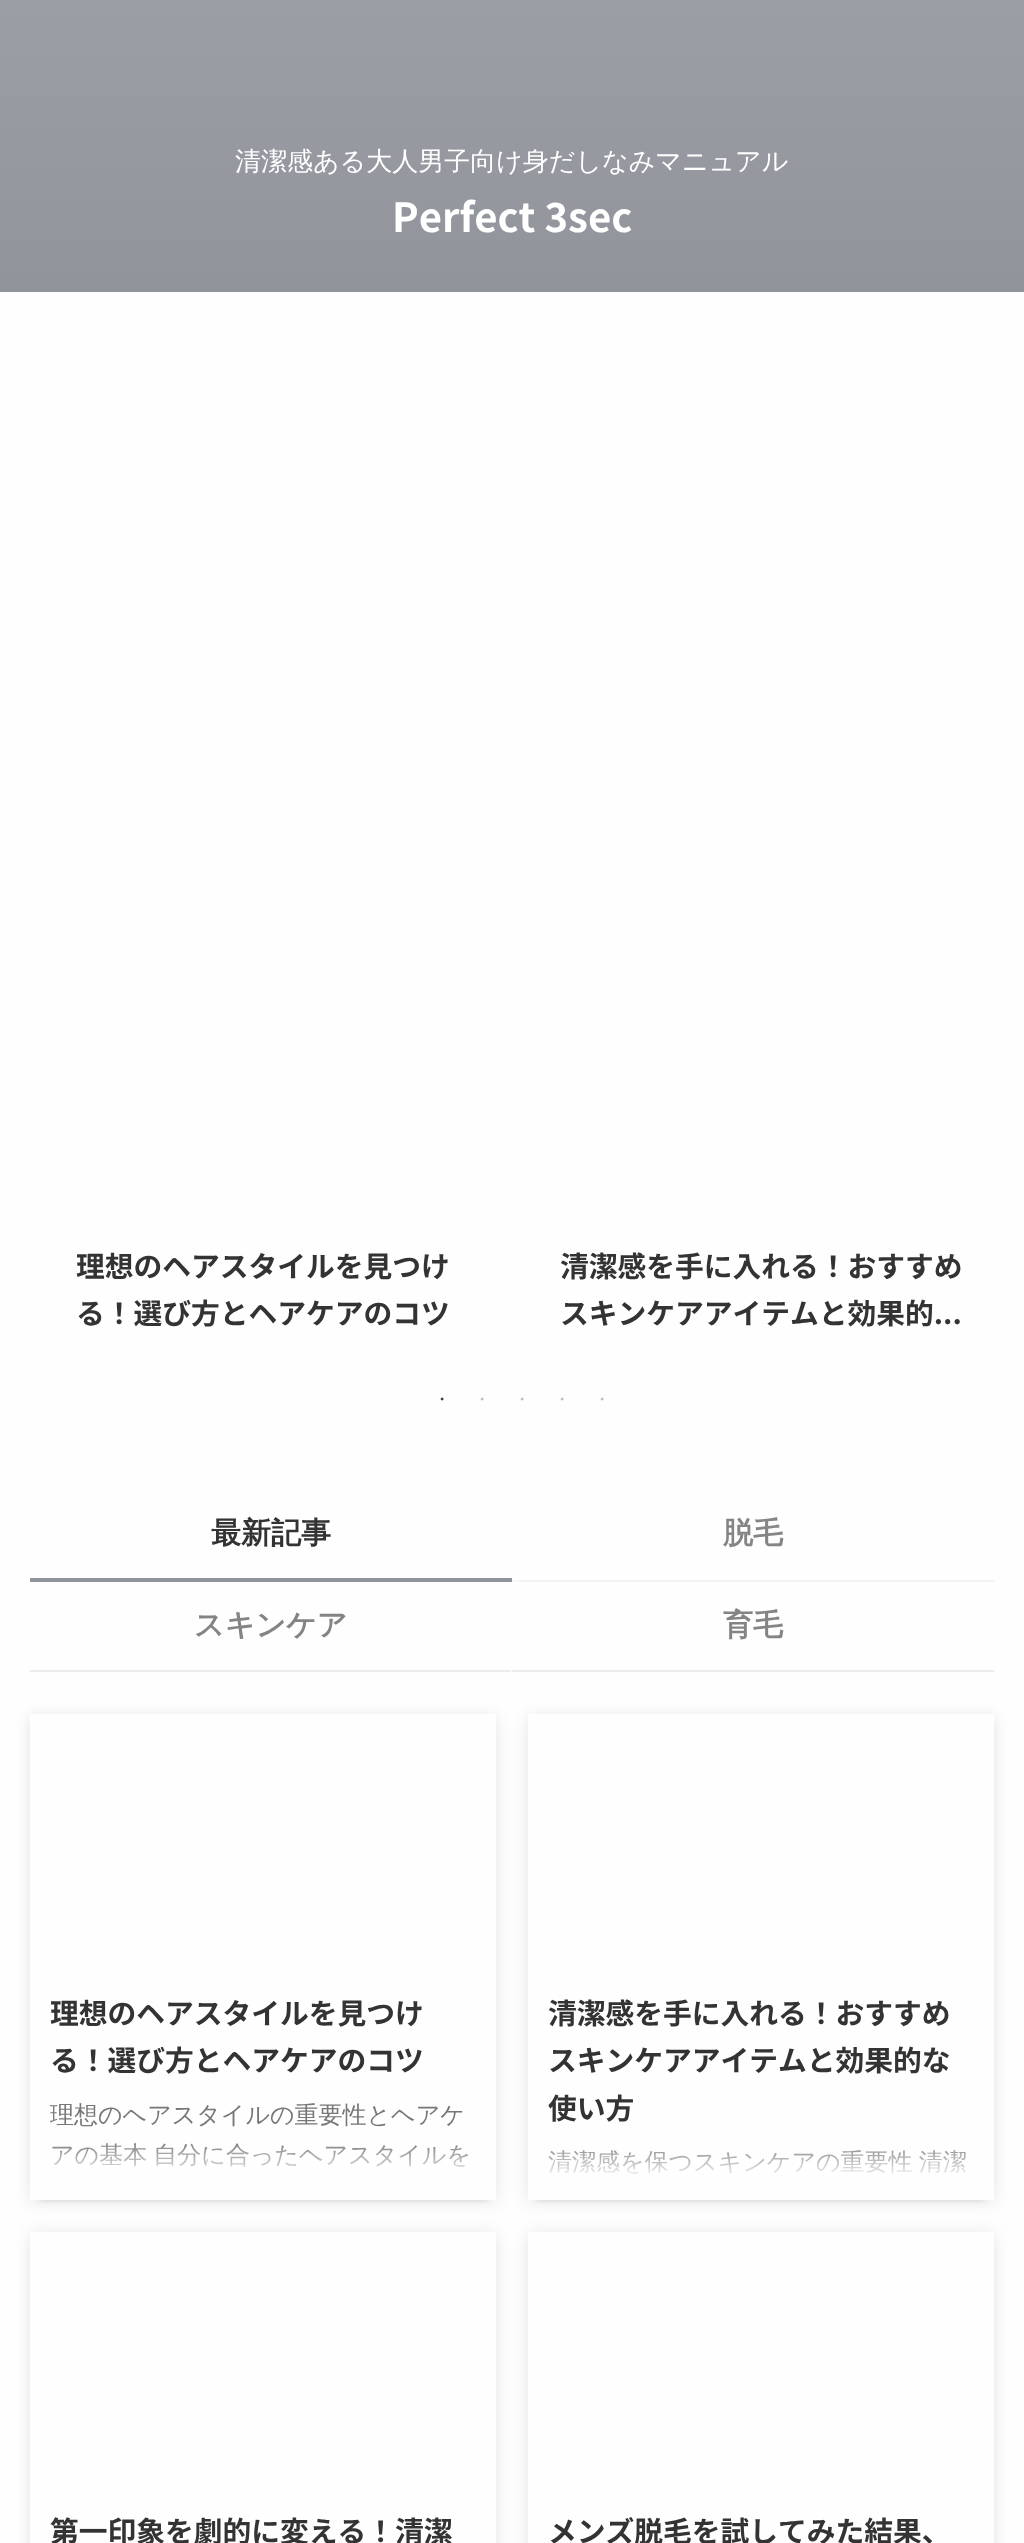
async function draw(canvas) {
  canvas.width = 1024
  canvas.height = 2543
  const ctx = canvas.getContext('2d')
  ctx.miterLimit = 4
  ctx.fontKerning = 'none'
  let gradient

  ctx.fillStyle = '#fefefe'
  ctx.fillRect(0, 0, 1024, 2543)
  gradient = ctx.createLinearGradient(512, 0, 512, 292)
  gradient.addColorStop(0, '#9c9ea5')
  gradient.addColorStop(1, '#92949c')
  ctx.fillStyle = gradient
  ctx.fillRect(0, 0, 1024, 292)
  ctx.font = '500 26px WenQuanYi Zen Hei'
  ctx.fillStyle = '#fff'
  ctx.fillText('清潔感ある大人男子向け身だしなみマニュアル', 235, 170)
  ctx.font = 'bold 40px Noto Sans JP'
  ctx.fillText('Perfect 3sec', 392, 232)
  ctx.font = 'bold 28.75px Noto Sans JP'
  ctx.fillStyle = '#333'
  ctx.fillText('理想のヘアスタイルを見つけ', 76, 1277)
  ctx.fillText('る！選び方とヘアケアのコツ', 76, 1324)
  ctx.fillText('清潔感を手に入れる！おすすめ', 560, 1277)
  ctx.fillText('スキンケアアイテムと効果的...', 560, 1324)
  ctx.font = '12px Liberation Serif'
  ctx.fillStyle = '#404040'
  ctx.fillText('•', 440, 1403)
  ctx.fillStyle = '#bfbfbf'
  ctx.fillText('•', 480, 1403)
  ctx.fillText('•', 520, 1403)
  ctx.fillText('•', 560, 1403)
  ctx.fillText('•', 600, 1403)
  ctx.fillStyle = '#e0e0e0'
  ctx.fillRect(512, 1580, 482, 2)
  ctx.strokeStyle = '#ffffff66'
  ctx.lineWidth = 2
  ctx.strokeRect(511, 1487, 488, 94)
  ctx.fillStyle = '#ccc'
  ctx.fillRect(30, 1670, 482, 2)
  ctx.font = 'bold 30px WenQuanYi Zen Hei'
  ctx.fillStyle = '#333'
  ctx.fillText('スキンケア', 194, 1635)
  ctx.fillStyle = '#ffffff66'
  ctx.fillRect(30, 1580, 488, 92)
  ctx.strokeRect(29, 1579, 488, 92)
  ctx.fillStyle = '#ccc'
  ctx.fillRect(512, 1670, 482, 2)
  ctx.fillStyle = '#333'
  ctx.fillText('育毛', 723, 1635)
  ctx.fillStyle = '#ffffff66'
  ctx.fillRect(510, 1580, 484, 92)
  ctx.strokeRect(511, 1579, 488, 92)
  ctx.fillStyle = '#92949c'
  ctx.fillRect(30, 1578, 482, 4)
  ctx.fillStyle = '#333'
  ctx.fillText('最新記事', 211, 1543)
  ctx.fillStyle = '#858585'
  ctx.fillText('脱毛', 723, 1543)
  ctx.save()
  ctx.beginPath()
  ctx.rect(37, 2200, 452, 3)
  ctx.clip()
  ctx.fillStyle = '#0000001a'
  ctx.filter = 'blur(4px)'
  ctx.beginPath()
  ctx.rect(38, 1730, 450, 470)
  ctx.fill()
  ctx.filter = 'none'
  ctx.restore()
  ctx.save()
  ctx.beginPath()
  ctx.moveTo(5, 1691)
  ctx.lineTo(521, 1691)
  ctx.lineTo(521, 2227)
  ctx.lineTo(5, 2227)
  ctx.closePath()
  ctx.moveTo(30, 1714)
  ctx.lineTo(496, 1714)
  ctx.lineTo(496, 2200)
  ctx.lineTo(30, 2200)
  ctx.closePath()
  ctx.clip('evenodd')
  ctx.fillStyle = '#0000001a'
  ctx.filter = 'blur(8px)'
  ctx.beginPath()
  ctx.rect(30, 1716, 466, 486)
  ctx.fill()
  ctx.filter = 'none'
  ctx.restore()
  ctx.font = 'bold 28.75px Noto Sans JP'
  ctx.fillStyle = '#333'
  ctx.fillText('理想のヘアスタイルを見つけ', 50, 2024)
  ctx.fillText('る！選び方とヘアケアのコツ', 50, 2071)
  ctx.font = '500 24px WenQuanYi Zen Hei'
  ctx.fillStyle = '#777'
  ctx.fillText('理想のヘアスタイルの重要性とヘアケ', 50, 2123)
  ctx.wordSpacing = '-1px'
  ctx.fillText('アの基本 自分に合ったヘアスタイルを', 50, 2163)
  gradient = ctx.createLinearGradient(263, 2140, 263, 2180)
  gradient.addColorStop(0, '#ffffff00')
  gradient.addColorStop(1, '#fff')
  ctx.fillStyle = gradient
  ctx.fillRect(52, 2143, 417, 24)
  ctx.save()
  ctx.beginPath()
  ctx.rect(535, 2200, 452, 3)
  ctx.clip()
  ctx.fillStyle = '#0000001a'
  ctx.filter = 'blur(4px)'
  ctx.beginPath()
  ctx.rect(536, 1730, 450, 470)
  ctx.fill()
  ctx.filter = 'none'
  ctx.restore()
  ctx.save()
  ctx.beginPath()
  ctx.moveTo(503, 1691)
  ctx.lineTo(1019, 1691)
  ctx.lineTo(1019, 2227)
  ctx.lineTo(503, 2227)
  ctx.closePath()
  ctx.moveTo(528, 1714)
  ctx.lineTo(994, 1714)
  ctx.lineTo(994, 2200)
  ctx.lineTo(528, 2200)
  ctx.closePath()
  ctx.clip('evenodd')
  ctx.fillStyle = '#0000001a'
  ctx.filter = 'blur(8px)'
  ctx.beginPath()
  ctx.rect(528, 1716, 466, 486)
  ctx.fill()
  ctx.filter = 'none'
  ctx.restore()
  ctx.wordSpacing = '0px'
  ctx.font = 'bold 28.75px Noto Sans JP'
  ctx.fillStyle = '#333'
  ctx.fillText('清潔感を手に入れる！おすすめ', 548, 2024)
  ctx.fillText('スキンケアアイテムと効果的な', 548, 2071)
  ctx.fillText('使い方', 548, 2119)
  ctx.wordSpacing = '-1px'
  ctx.font = '500 24px WenQuanYi Zen Hei'
  ctx.fillStyle = '#777'
  ctx.fillText('清潔感を保つスキンケアの重要性 清潔', 548, 2170)
  gradient = ctx.createLinearGradient(761, 2140, 761, 2180)
  gradient.addColorStop(0, '#ffffff00')
  gradient.addColorStop(1, '#fff')
  ctx.fillStyle = gradient
  ctx.fillRect(548, 2150, 419, 24)
  ctx.save()
  ctx.beginPath()
  ctx.moveTo(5, 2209)
  ctx.lineTo(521, 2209)
  ctx.lineTo(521, 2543)
  ctx.lineTo(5, 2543)
  ctx.closePath()
  ctx.moveTo(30, 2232)
  ctx.lineTo(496, 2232)
  ctx.lineTo(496, 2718)
  ctx.lineTo(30, 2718)
  ctx.closePath()
  ctx.clip('evenodd')
  ctx.fillStyle = '#0000001a'
  ctx.filter = 'blur(8px)'
  ctx.beginPath()
  ctx.rect(30, 2234, 466, 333)
  ctx.fill()
  ctx.filter = 'none'
  ctx.restore()
  ctx.wordSpacing = '0px'
  ctx.font = 'bold 28.75px Noto Sans JP'
  ctx.fillStyle = '#333'
  ctx.fillText('第一印象を劇的に変える！清潔', 50, 2542)
  ctx.save()
  ctx.beginPath()
  ctx.moveTo(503, 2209)
  ctx.lineTo(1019, 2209)
  ctx.lineTo(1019, 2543)
  ctx.lineTo(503, 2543)
  ctx.closePath()
  ctx.moveTo(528, 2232)
  ctx.lineTo(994, 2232)
  ctx.lineTo(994, 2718)
  ctx.lineTo(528, 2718)
  ctx.closePath()
  ctx.clip('evenodd')
  ctx.fillStyle = '#0000001a'
  ctx.filter = 'blur(8px)'
  ctx.beginPath()
  ctx.rect(528, 2234, 466, 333)
  ctx.fill()
  ctx.filter = 'none'
  ctx.restore()
  ctx.fillText('メンズ脱毛を試してみた結果、', 548, 2542)
}

draw(document.querySelector('canvas'))
